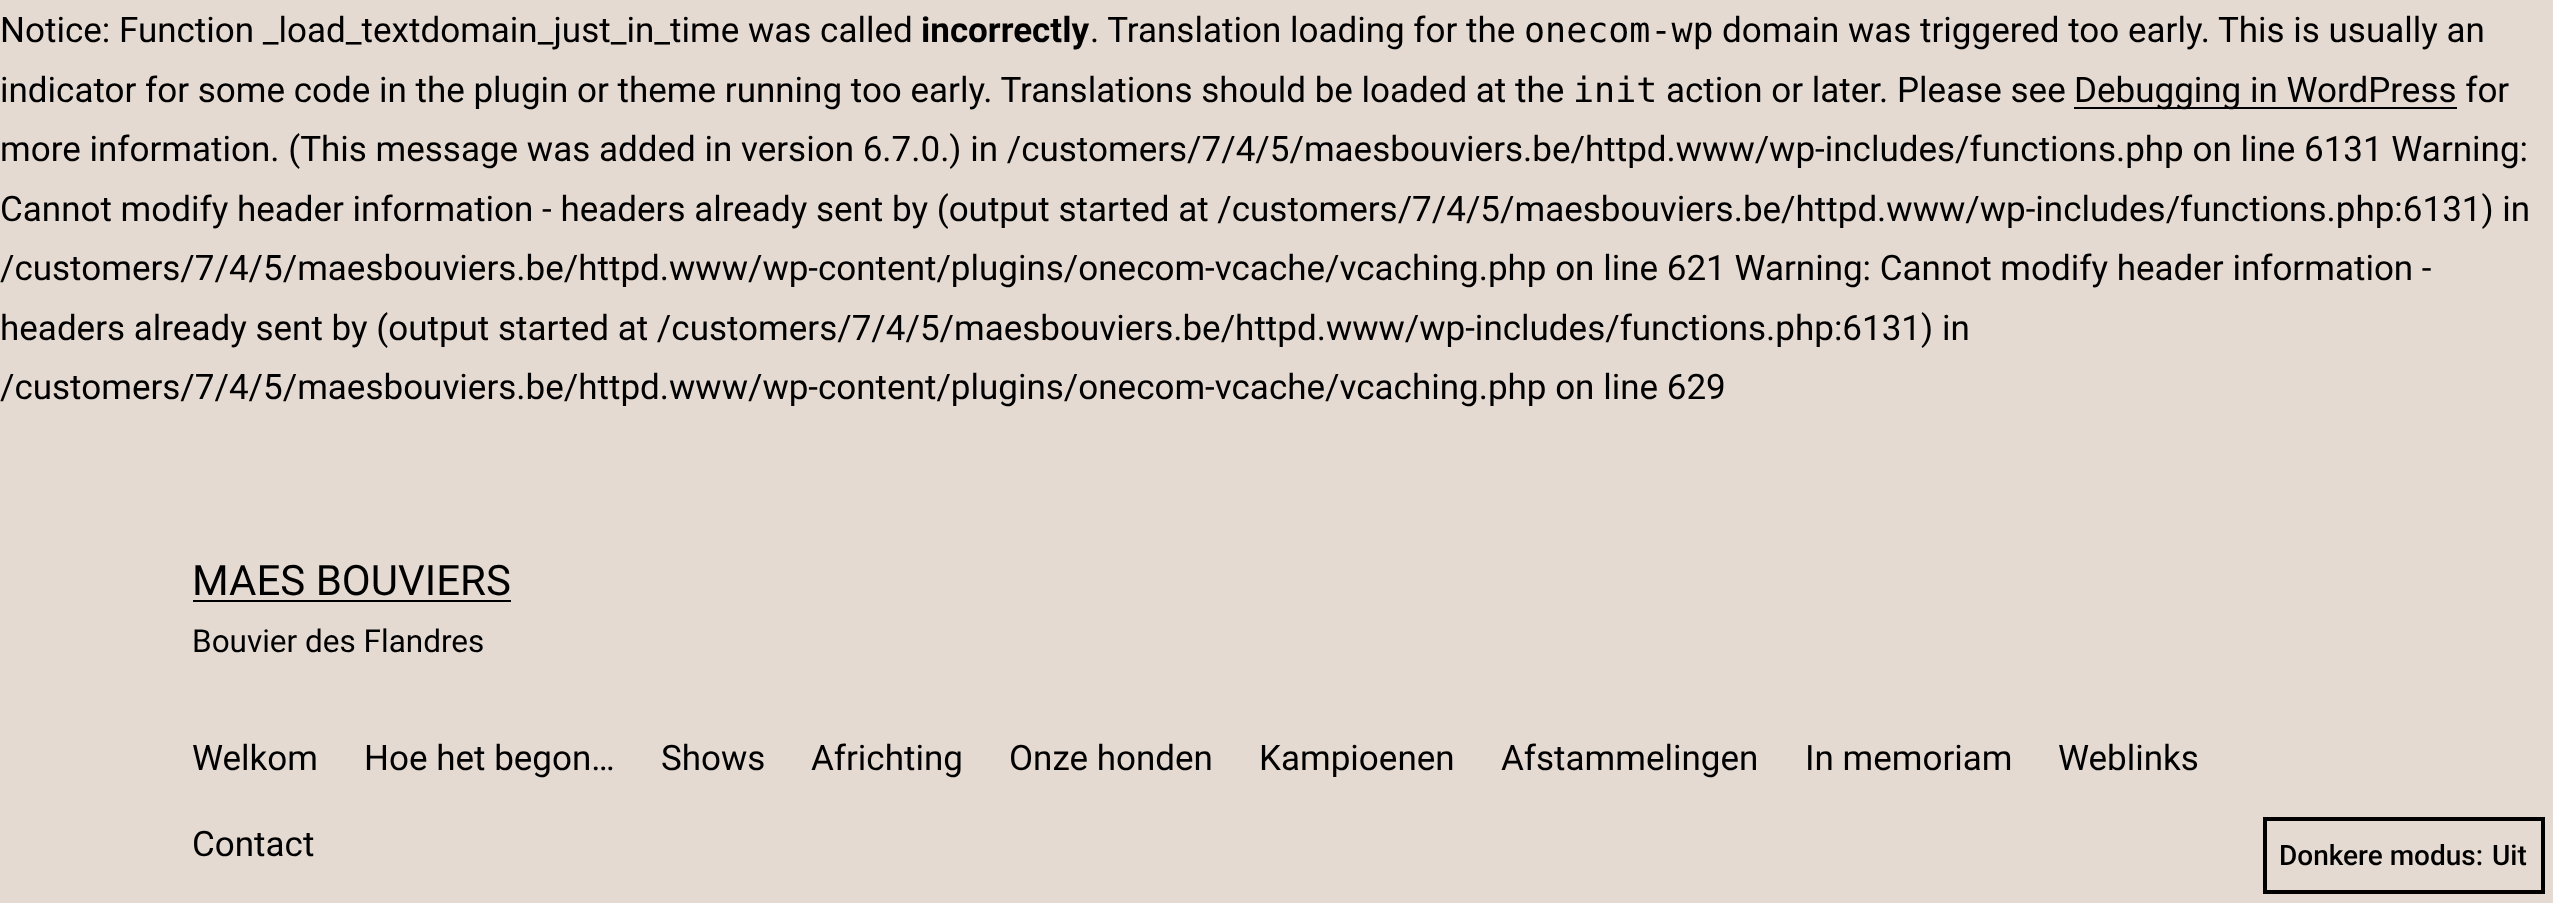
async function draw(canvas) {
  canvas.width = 2553
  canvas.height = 903
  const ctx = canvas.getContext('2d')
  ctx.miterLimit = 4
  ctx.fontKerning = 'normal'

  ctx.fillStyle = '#e4dad1'
  ctx.fillRect(0, 0, 2553, 903)
  ctx.font = '35px Roboto'
  ctx.fillStyle = '#000'
  ctx.fillText('Notice: Function _load_textdomain_just_in_time was called', 0, 42)
  ctx.font = 'bold 35px Roboto'
  ctx.fillText('incorrectly', 921, 42)
  ctx.font = '35px Roboto'
  ctx.fillText('. Translation loading for the', 1090, 42)
  ctx.font = '35px DejaVu Sans Mono'
  ctx.fillText('onecom-wp', 1524, 42)
  ctx.font = '35px Roboto'
  ctx.fillText('domain was triggered too early. This is usually an', 1722, 42)
  ctx.fillText('indicator for some code in the plugin or theme running too early. Translations should be loaded at the', 0, 102)
  ctx.font = '35px DejaVu Sans Mono'
  ctx.fillText('init', 1573, 102)
  ctx.font = '35px Roboto'
  ctx.fillText('action or later. Please see', 1666, 102)
  ctx.fillRect(2074, 107, 383, 2)
  ctx.fillText('Debugging in WordPress for', 2074, 102)
  ctx.fillText('more information. (This message was added in version 6.7.0.) in /customers/7/4/5/maesbouviers.be/httpd.www/wp-includes/functions.php on line 6131 Warning:', 0, 161)
  ctx.fillText('Cannot modify header information - headers already sent by (output started at /customers/7/4/5/maesbouviers.be/httpd.www/wp-includes/functions.php:6131) in', 0, 221)
  ctx.fillText('/customers/7/4/5/maesbouviers.be/httpd.www/wp-content/plugins/onecom-vcache/vcaching.php on line 621 Warning: Cannot modify header information -', 0, 280)
  ctx.fillText('headers already sent by (output started at /customers/7/4/5/maesbouviers.be/httpd.www/wp-includes/functions.php:6131) in', 0, 340)
  ctx.fillText('/customers/7/4/5/maesbouviers.be/httpd.www/wp-content/plugins/onecom-vcache/vcaching.php on line 629', 0, 399)
  ctx.font = '42px Roboto'
  ctx.fillText('MAES BOUVIERS', 192, 595)
  ctx.fillRect(193, 600, 318, 2)
  ctx.font = '31.5px Roboto'
  ctx.fillText('Bouvier des Flandres', 192, 652)
  ctx.font = '35px Roboto'
  ctx.fillText('Welkom', 192, 770)
  ctx.fillText('Hoe het begon…', 364, 770)
  ctx.fillText('Shows', 661, 770)
  ctx.fillText('Africhting', 811, 770)
  ctx.fillText('Onze honden', 1009, 770)
  ctx.fillText('Kampioenen', 1259, 770)
  ctx.fillText('Afstammelingen', 1501, 770)
  ctx.fillText('In memoriam', 1805, 770)
  ctx.fillText('Weblinks', 2058, 770)
  ctx.fillText('Contact', 192, 856)
  ctx.strokeStyle = '#000'
  ctx.lineWidth = 4
  ctx.strokeRect(2265, 819, 278, 73)
  ctx.font = '500 28px Roboto'
  ctx.fillText('Donkere modus:', 2279, 865)
  ctx.fillText('Uit', 2492, 865)
}

draw(document.querySelector('canvas'))
